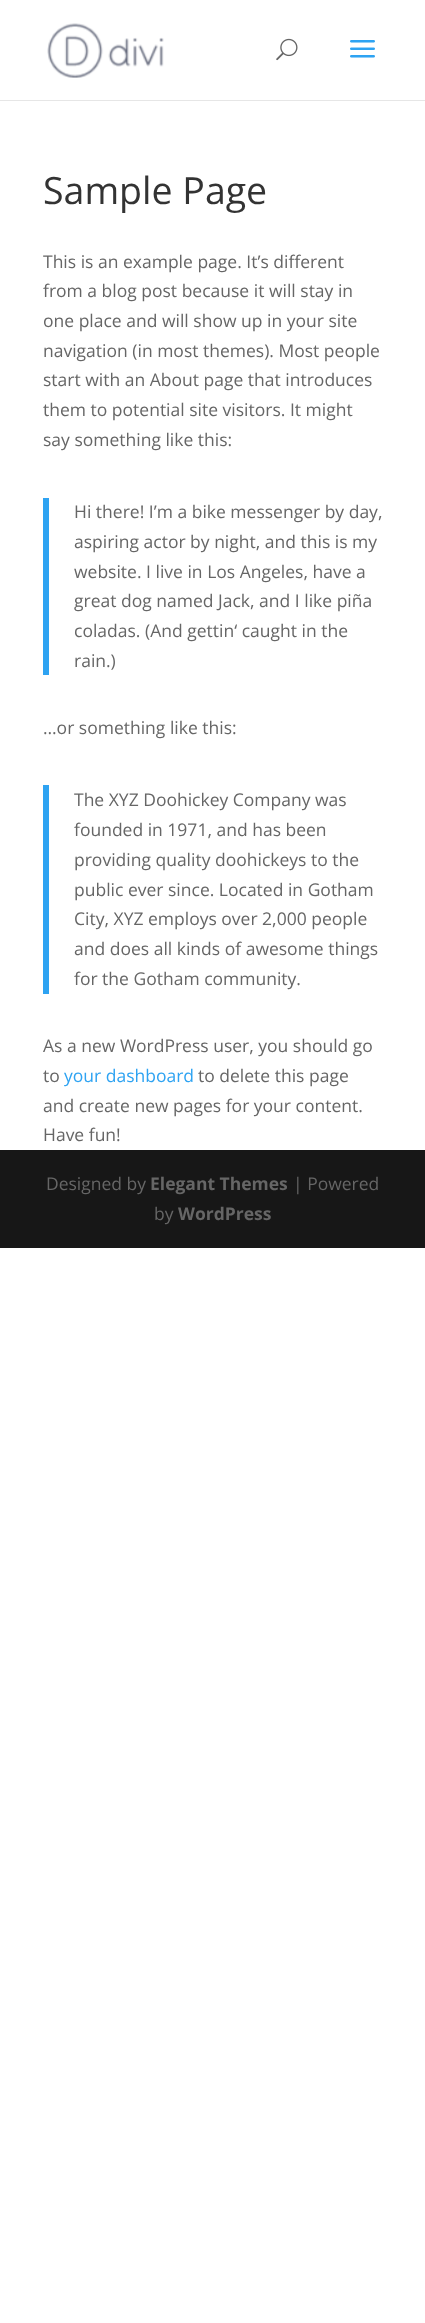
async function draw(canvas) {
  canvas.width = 425
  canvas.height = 2323
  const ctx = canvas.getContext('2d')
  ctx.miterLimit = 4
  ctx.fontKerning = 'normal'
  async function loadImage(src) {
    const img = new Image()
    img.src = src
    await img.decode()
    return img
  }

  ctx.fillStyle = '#fff'
  ctx.fillRect(0, 0, 425, 2323)
  ctx.fillStyle = '#e6e6e6'
  ctx.fillRect(0, 100, 425, 1)
  ctx.drawImage(await loadImage('image0.png'), 47, 23, 117, 55)
  ctx.drawImage(await loadImage('image1.png'), 276, 38, 22, 23)
  ctx.drawImage(await loadImage('image2.png'), 350, 40, 25, 18)
  ctx.font = '37.5px Open Sans'
  ctx.fillStyle = '#333'
  ctx.fillText('Sample Page', 43, 204)
  ctx.font = '17.5px Open Sans'
  ctx.fillStyle = '#666'
  ctx.fillText('This is an example page. It’s different', 43, 268)
  ctx.fillText('from a blog post because it will stay in', 43, 297)
  ctx.fillText('one place and will show up in your site', 43, 327)
  ctx.fillText('navigation (in most themes). Most people', 43, 357)
  ctx.fillText('start with an About page that introduces', 43, 386)
  ctx.fillText('them to potential site visitors. It might', 43, 416)
  ctx.fillText('say something like this:', 43, 446)
  ctx.fillStyle = '#2ea3f2'
  ctx.fillRect(43, 498, 6, 177)
  ctx.fillStyle = '#666'
  ctx.fillText('Hi there! I’m a bike messenger by day,', 74, 518)
  ctx.fillText('aspiring actor by night, and this is my', 74, 548)
  ctx.fillText('website. I live in Los Angeles, have a', 74, 578)
  ctx.fillText('great dog named Jack, and I like piña', 74, 607)
  ctx.fillText('coladas. (And gettin‘ caught in the', 74, 637)
  ctx.fillText('rain.)', 74, 667)
  ctx.fillText('…or something like this:', 43, 734)
  ctx.fillStyle = '#2ea3f2'
  ctx.fillRect(43, 785, 6, 209)
  ctx.fillStyle = '#666'
  ctx.fillText('The XYZ Doohickey Company was', 74, 806)
  ctx.fillText('founded in 1971, and has been', 74, 836)
  ctx.fillText('providing quality doohickeys to the', 74, 866)
  ctx.fillText('public ever since. Located in Gotham', 74, 896)
  ctx.fillText('City, XYZ employs over 2,000 people', 74, 925)
  ctx.fillText('and does all kinds of awesome things', 74, 955)
  ctx.fillText('for the Gotham community.', 74, 985)
  ctx.fillText('As a new WordPress user, you should go', 43, 1052)
  ctx.fillText('to', 43, 1082)
  ctx.fillStyle = '#2ea3f2'
  ctx.fillText('your dashboard', 64, 1082)
  ctx.fillStyle = '#666'
  ctx.fillText('to delete this page', 198, 1082)
  ctx.fillText('and create new pages for your content.', 43, 1112)
  ctx.fillText('Have fun!', 43, 1141)
  ctx.fillStyle = '#171717'
  ctx.fillRect(0, 1150, 425, 98)
  ctx.fillStyle = '#666'
  ctx.fillText('Designed by', 46, 1190)
  ctx.font = 'bold 17.5px Open Sans'
  ctx.fillText('Elegant Themes', 150, 1190)
  ctx.font = '17.5px Open Sans'
  ctx.fillText('| Powered', 293, 1190)
  ctx.fillText('by', 154, 1220)
  ctx.font = 'bold 17.5px Open Sans'
  ctx.fillText('WordPress', 178, 1220)
}

draw(document.querySelector('canvas'))
